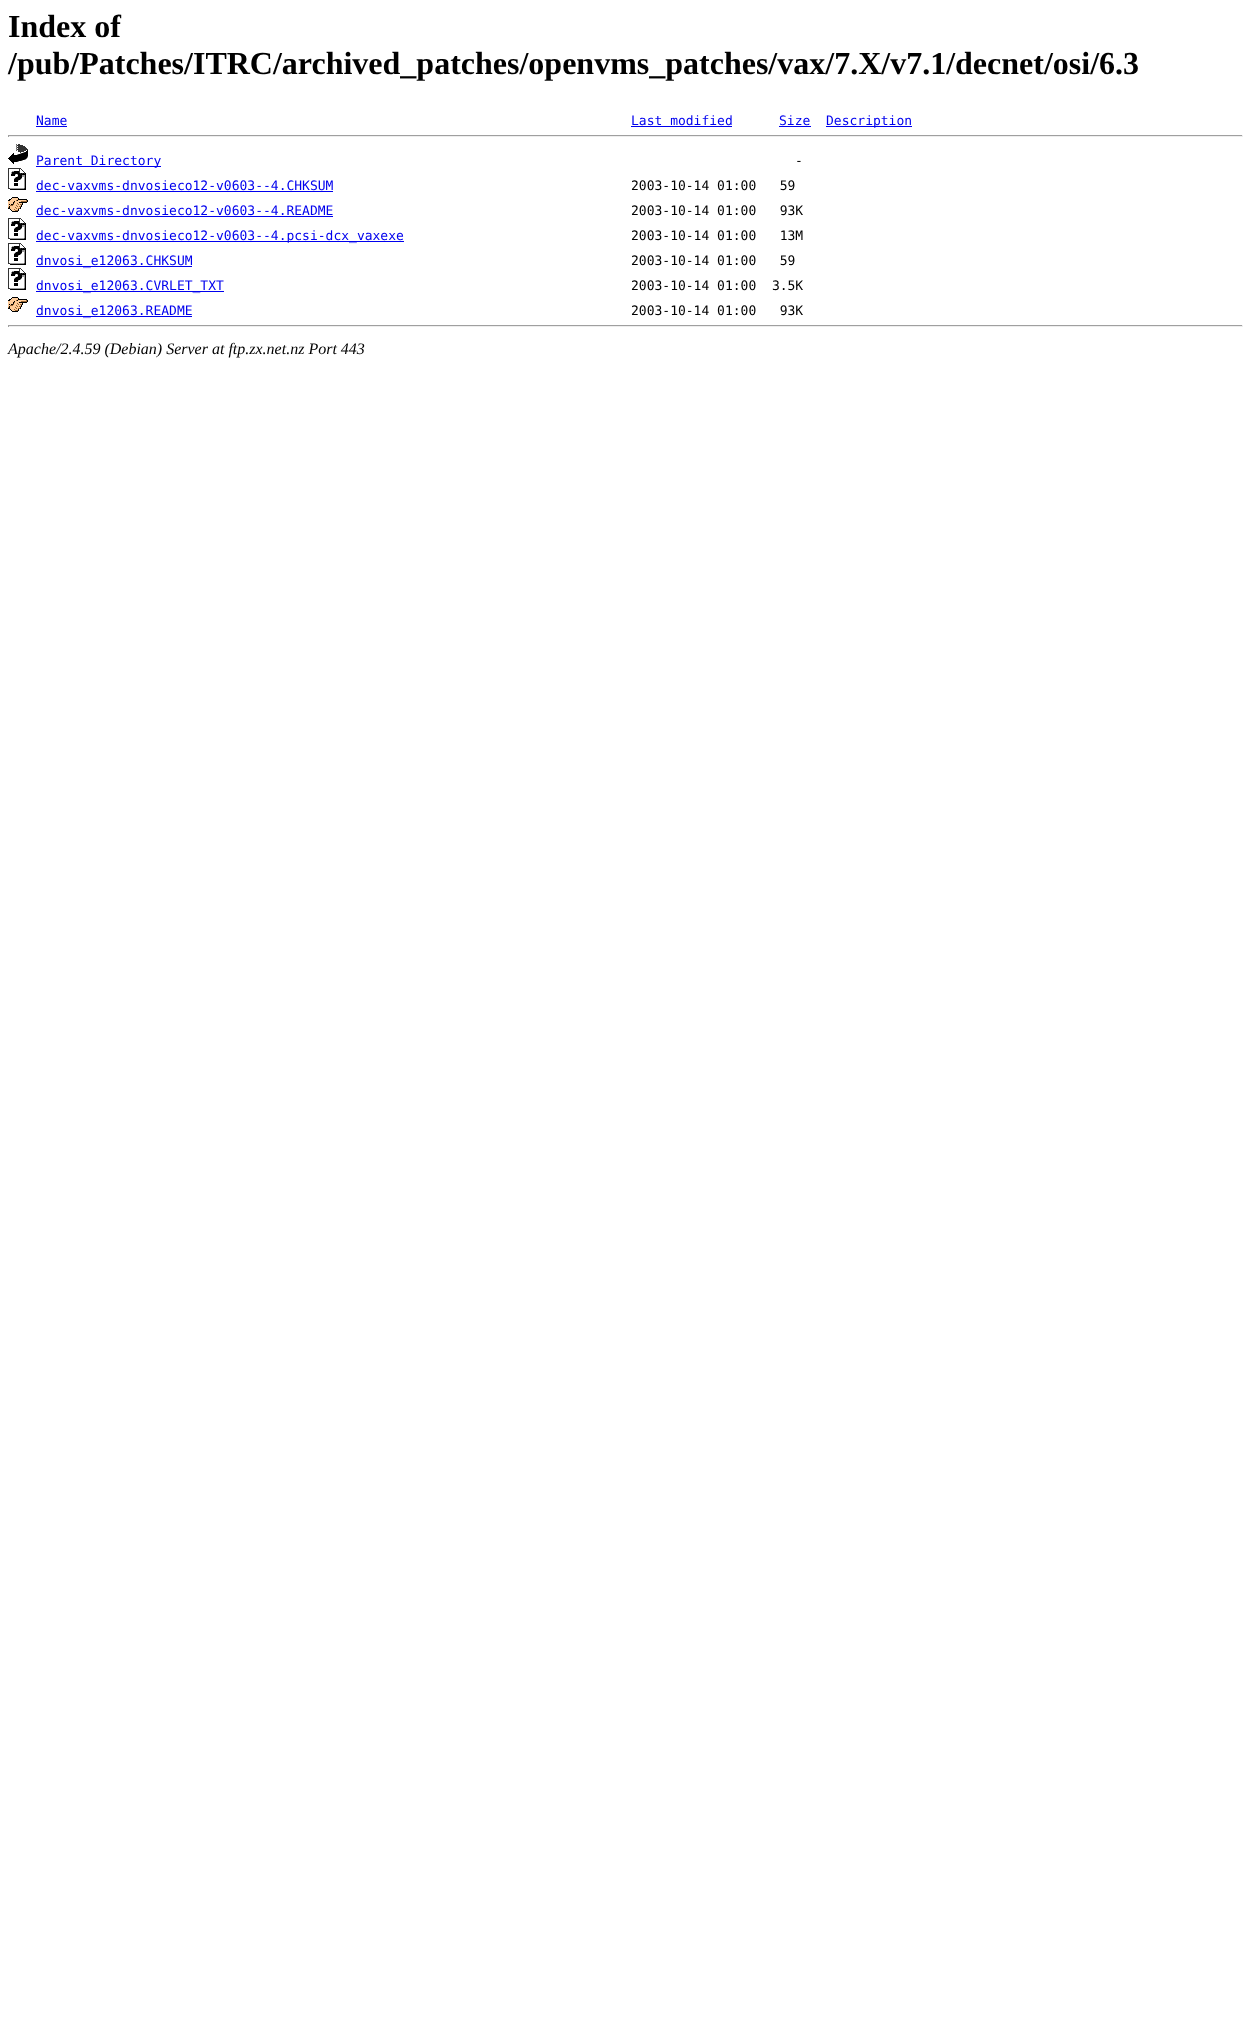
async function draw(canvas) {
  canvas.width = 1251
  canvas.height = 2028
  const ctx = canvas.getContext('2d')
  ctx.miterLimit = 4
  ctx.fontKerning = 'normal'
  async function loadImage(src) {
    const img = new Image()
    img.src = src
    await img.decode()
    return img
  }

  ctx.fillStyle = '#fff'
  ctx.fillRect(0, 0, 1251, 2028)
  ctx.font = 'bold 32px Liberation Serif'
  ctx.fillStyle = '#000'
  ctx.fillText('Index of', 8, 37)
  ctx.fillText('/pub/Patches/ITRC/archived_patches/openvms_patches/vax/7.X/v7.1/decnet/osi/6.3', 8, 74)
  ctx.font = '13px DejaVu Sans Mono'
  ctx.fillStyle = '#00e'
  ctx.fillText('Name', 36, 125)
  ctx.fillRect(36, 126, 31, 1)
  ctx.fillText('Last modified', 631, 125)
  ctx.fillRect(631, 126, 101, 1)
  ctx.fillText('Size', 779, 125)
  ctx.fillRect(779, 126, 32, 1)
  ctx.fillRect(826, 126, 86, 1)
  ctx.fillText('Description', 826, 125)
  ctx.fillStyle = '#9f9f9f'
  ctx.fillRect(8, 135, 1235, 1)
  ctx.fillStyle = '#eee'
  ctx.fillRect(1242, 135, 1, 2)
  ctx.fillRect(8, 136, 1235, 1)
  ctx.fillStyle = '#9f9f9f'
  ctx.fillRect(8, 135, 1, 2)
  ctx.drawImage(await loadImage('image0.png'), 8, 144, 20, 20)
  ctx.fillStyle = '#00e'
  ctx.fillRect(36, 166, 125, 1)
  ctx.fillText('Parent Directory', 36, 165)
  ctx.fillStyle = '#000'
  ctx.fillText('-', 795, 165)
  ctx.drawImage(await loadImage('image1.png'), 8, 168, 18, 22)
  ctx.fillStyle = '#00e'
  ctx.fillText('dec-vaxvms-dnvosieco12-v0603--4.CHKSUM', 36, 190)
  ctx.fillRect(36, 191, 297, 1)
  ctx.fillStyle = '#000'
  ctx.fillText('2003-10-14 01:00   59', 631, 190)
  ctx.drawImage(await loadImage('image2.png'), 8, 197, 20, 15)
  ctx.fillStyle = '#00e'
  ctx.fillText('dec-vaxvms-dnvosieco12-v0603--4.README', 36, 215)
  ctx.fillRect(36, 216, 297, 1)
  ctx.fillStyle = '#000'
  ctx.fillText('2003-10-14 01:00   93K', 631, 215)
  ctx.drawImage(await loadImage('image1.png'), 8, 218, 18, 22)
  ctx.fillStyle = '#00e'
  ctx.fillRect(36, 241, 368, 1)
  ctx.fillText('dec-vaxvms-dnvosieco12-v0603--4.pcsi-dcx_vaxexe', 36, 240)
  ctx.fillStyle = '#000'
  ctx.fillText('2003-10-14 01:00   13M', 631, 240)
  ctx.drawImage(await loadImage('image1.png'), 8, 243, 18, 22)
  ctx.fillStyle = '#00e'
  ctx.fillRect(36, 266, 156, 1)
  ctx.fillText('dnvosi_e12063.CHKSUM', 36, 265)
  ctx.fillStyle = '#000'
  ctx.fillText('2003-10-14 01:00   59', 631, 265)
  ctx.drawImage(await loadImage('image1.png'), 8, 268, 18, 22)
  ctx.fillStyle = '#00e'
  ctx.fillRect(36, 291, 188, 1)
  ctx.fillText('dnvosi_e12063.CVRLET_TXT', 36, 290)
  ctx.fillStyle = '#000'
  ctx.fillText('2003-10-14 01:00  3.5K', 631, 290)
  ctx.drawImage(await loadImage('image2.png'), 8, 297, 20, 15)
  ctx.fillStyle = '#00e'
  ctx.fillRect(36, 316, 156, 1)
  ctx.fillText('dnvosi_e12063.README', 36, 315)
  ctx.fillStyle = '#000'
  ctx.fillText('2003-10-14 01:00   93K', 631, 315)
  ctx.fillStyle = '#9f9f9f'
  ctx.fillRect(8, 325, 1235, 1)
  ctx.fillStyle = '#eee'
  ctx.fillRect(1242, 325, 1, 2)
  ctx.fillRect(8, 326, 1235, 1)
  ctx.fillStyle = '#9f9f9f'
  ctx.fillRect(8, 325, 1, 2)
  ctx.font = 'italic 16px Liberation Serif'
  ctx.fillStyle = '#000'
  ctx.fillText('Apache/2.4.59 (Debian) Server at ftp.zx.net.nz Port 443', 8, 354)
}

draw(document.querySelector('canvas'))
